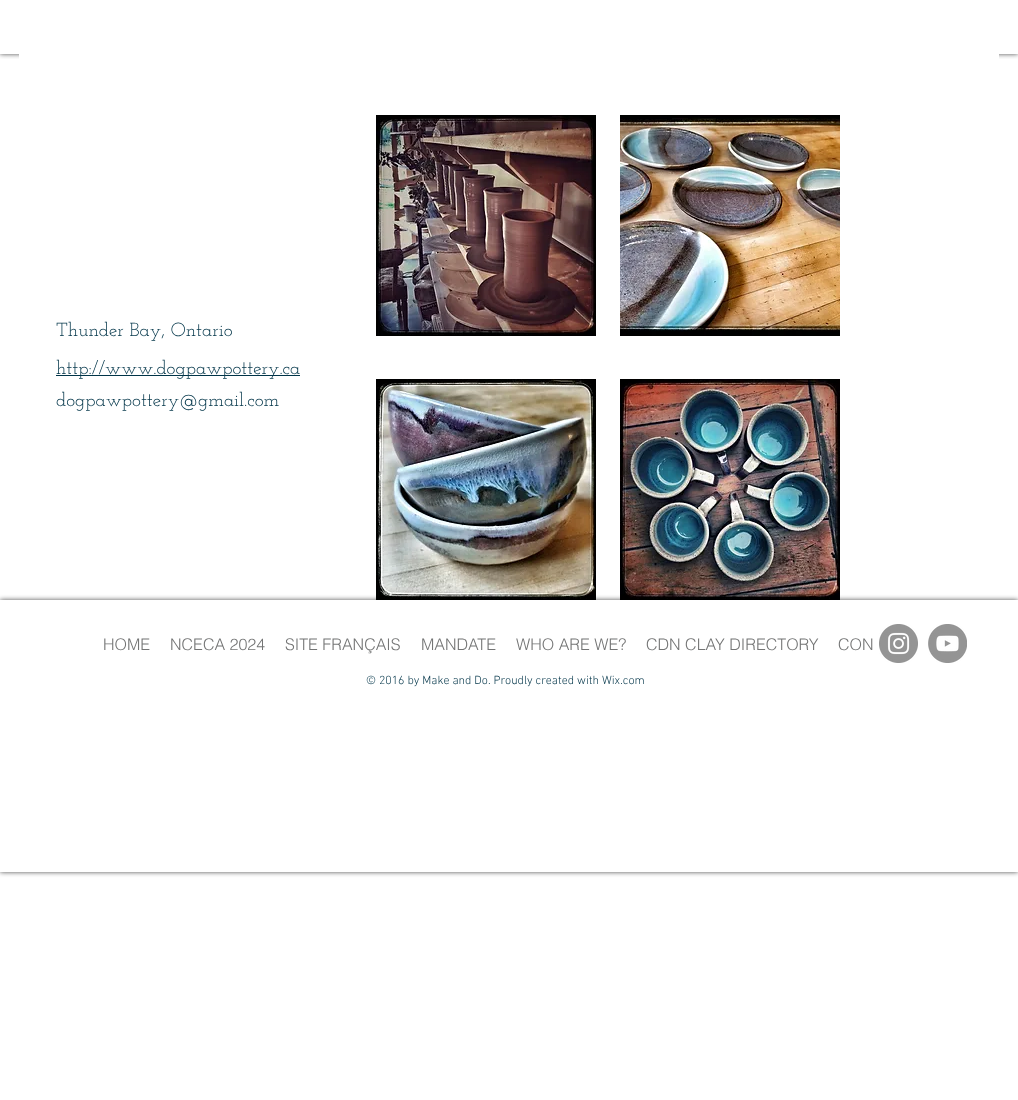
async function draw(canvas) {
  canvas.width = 1018
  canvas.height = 1100
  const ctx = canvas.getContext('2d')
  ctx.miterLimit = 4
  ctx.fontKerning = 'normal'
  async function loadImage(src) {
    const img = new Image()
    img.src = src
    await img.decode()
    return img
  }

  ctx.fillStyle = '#fff'
  ctx.fillRect(0, 0, 1018, 1100)
  ctx.save()
  ctx.beginPath()
  ctx.rect(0, 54, 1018, 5)
  ctx.clip()
  ctx.fillStyle = '#000000b3'
  ctx.filter = 'blur(2.5px)'
  ctx.beginPath()
  ctx.rect(0, 0, 1018, 54)
  ctx.fill()
  ctx.filter = 'none'
  ctx.restore()
  ctx.fillRect(19, 54, 980, 5)
  ctx.font = '19px Josefin Slab'
  ctx.fillStyle = '#003448'
  ctx.fillText('Thunder Bay, Ontario', 56, 336)
  ctx.drawImage(await loadImage('image0.png'), 376, 115, 220, 221)
  ctx.drawImage(await loadImage('image1.png'), 620, 115, 220, 221)
  ctx.fillRect(56, 375, 244, 1)
  ctx.fillText('http://www.dogpawpottery.ca', 56, 374)
  ctx.fillText('dogpawpottery@gmail.com', 56, 406)
  ctx.drawImage(await loadImage('image2.png'), 376, 379, 220, 221)
  ctx.drawImage(await loadImage('image3.png'), 620, 379, 220, 221)
  ctx.save()
  ctx.beginPath()
  ctx.moveTo(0, 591)
  ctx.lineTo(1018, 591)
  ctx.lineTo(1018, 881)
  ctx.lineTo(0, 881)
  ctx.closePath()
  ctx.moveTo(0, 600)
  ctx.lineTo(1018, 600)
  ctx.lineTo(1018, 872)
  ctx.lineTo(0, 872)
  ctx.closePath()
  ctx.clip('evenodd')
  ctx.fillStyle = '#000000b3'
  ctx.filter = 'blur(2.5px)'
  ctx.beginPath()
  ctx.rect(0, 600, 1018, 272)
  ctx.fill()
  ctx.filter = 'none'
  ctx.restore()
  ctx.font = '300 16px helvetica'
  ctx.fillStyle = '#747575'
  ctx.fillText('HOME', 103, 650)
  ctx.fillText('NCECA 2024', 170, 650)
  ctx.fillText('SITE FRANÇAIS', 285, 650)
  ctx.fillText('MANDATE', 421, 650)
  ctx.fillText('WHO ARE WE?', 516, 650)
  ctx.fillText('CDN CLAY DIRECTORY', 646, 650)
  ctx.fillText('CON', 838, 650)
  ctx.drawImage(await loadImage('image4.png'), 879, 624, 39, 39)
  ctx.drawImage(await loadImage('image5.png'), 928, 624, 39, 39)
  ctx.font = '300 12px "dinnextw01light"'
  ctx.fillStyle = '#003448'
  ctx.fillText('© 2016 by Make and Do. Proudly created with Wix.com', 366, 684)
}

draw(document.querySelector('canvas'))
